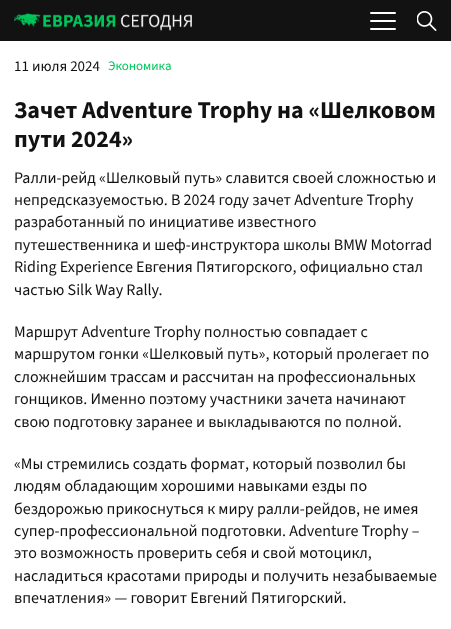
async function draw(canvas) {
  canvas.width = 451
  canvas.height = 629
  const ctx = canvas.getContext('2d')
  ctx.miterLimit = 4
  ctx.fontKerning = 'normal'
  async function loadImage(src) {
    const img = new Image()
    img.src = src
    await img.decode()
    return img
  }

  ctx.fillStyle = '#fff'
  ctx.fillRect(0, 0, 451, 629)
  ctx.fillStyle = '#121212'
  ctx.fillRect(0, 0, 451, 41)
  ctx.drawImage(await loadImage('image0.png'), 14, 13, 178, 18)
  ctx.fillStyle = '#fff'
  ctx.beginPath()
  ctx.roundRect(370, 20, 26, 2, 1)
  ctx.fill()
  ctx.beginPath()
  ctx.roundRect(370, 12, 26, 2, 1)
  ctx.fill()
  ctx.beginPath()
  ctx.roundRect(370, 28, 26, 2, 1)
  ctx.fill()
  ctx.drawImage(await loadImage('image1.png'), 417, 11, 20, 20)
  ctx.font = '15px "Source Sans 3"'
  ctx.fillStyle = '#121212'
  ctx.fillText('11 июля 2024', 14, 71)
  ctx.font = '13px "Source Sans 3"'
  ctx.fillStyle = '#00c75c'
  ctx.fillText('Экономика', 108, 70)
  ctx.font = 'bold 24px "Source Sans 3"'
  ctx.fillStyle = '#121212'
  ctx.fillText('Зачет Adventure Trophy на «Шелковом', 14, 118)
  ctx.fillText('пути 2024»', 14, 147)
  ctx.font = '16px "Source Sans 3"'
  ctx.fillText('Ралли-рейд «Шелковый путь» славится своей сложностью и', 14, 183)
  ctx.fillText('непредсказуемостью. В 2024 году зачет Adventure Trophy', 14, 205)
  ctx.fillText('разработанный по инициативе известного', 14, 227)
  ctx.fillText('путешественника и шеф-инструктора школы BMW Motorrad', 14, 250)
  ctx.fillText('Riding Experience Евгения Пятигорского, официально стал', 14, 272)
  ctx.fillText('частью Silk Way Rally.', 14, 295)
  ctx.fillText('Маршрут Adventure Trophy полностью совпадает с', 14, 337)
  ctx.fillText('маршрутом гонки «Шелковый путь», который пролегает по', 14, 359)
  ctx.fillText('сложнейшим трассам и рассчитан на профессиональных', 14, 382)
  ctx.fillText('гонщиков. Именно поэтому участники зачета начинают', 14, 404)
  ctx.fillText('свою подготовку заранее и выкладываются по полной.', 14, 427)
  ctx.fillText('«Мы стремились создать формат, который позволил бы', 14, 469)
  ctx.fillText('людям обладающим хорошими навыками езды по', 14, 491)
  ctx.fillText('бездорожью прикоснуться к миру ралли-рейдов, не имея', 14, 514)
  ctx.fillText('супер-профессиональной подготовки. Adventure Trophy –', 14, 536)
  ctx.fillText('это возможность проверить себя и свой мотоцикл,', 14, 558)
  ctx.fillText('насладиться красотами природы и получить незабываемые', 14, 581)
  ctx.fillText('впечатления» — говорит Евгений Пятигорский.', 14, 603)
}

draw(document.querySelector('canvas'))
